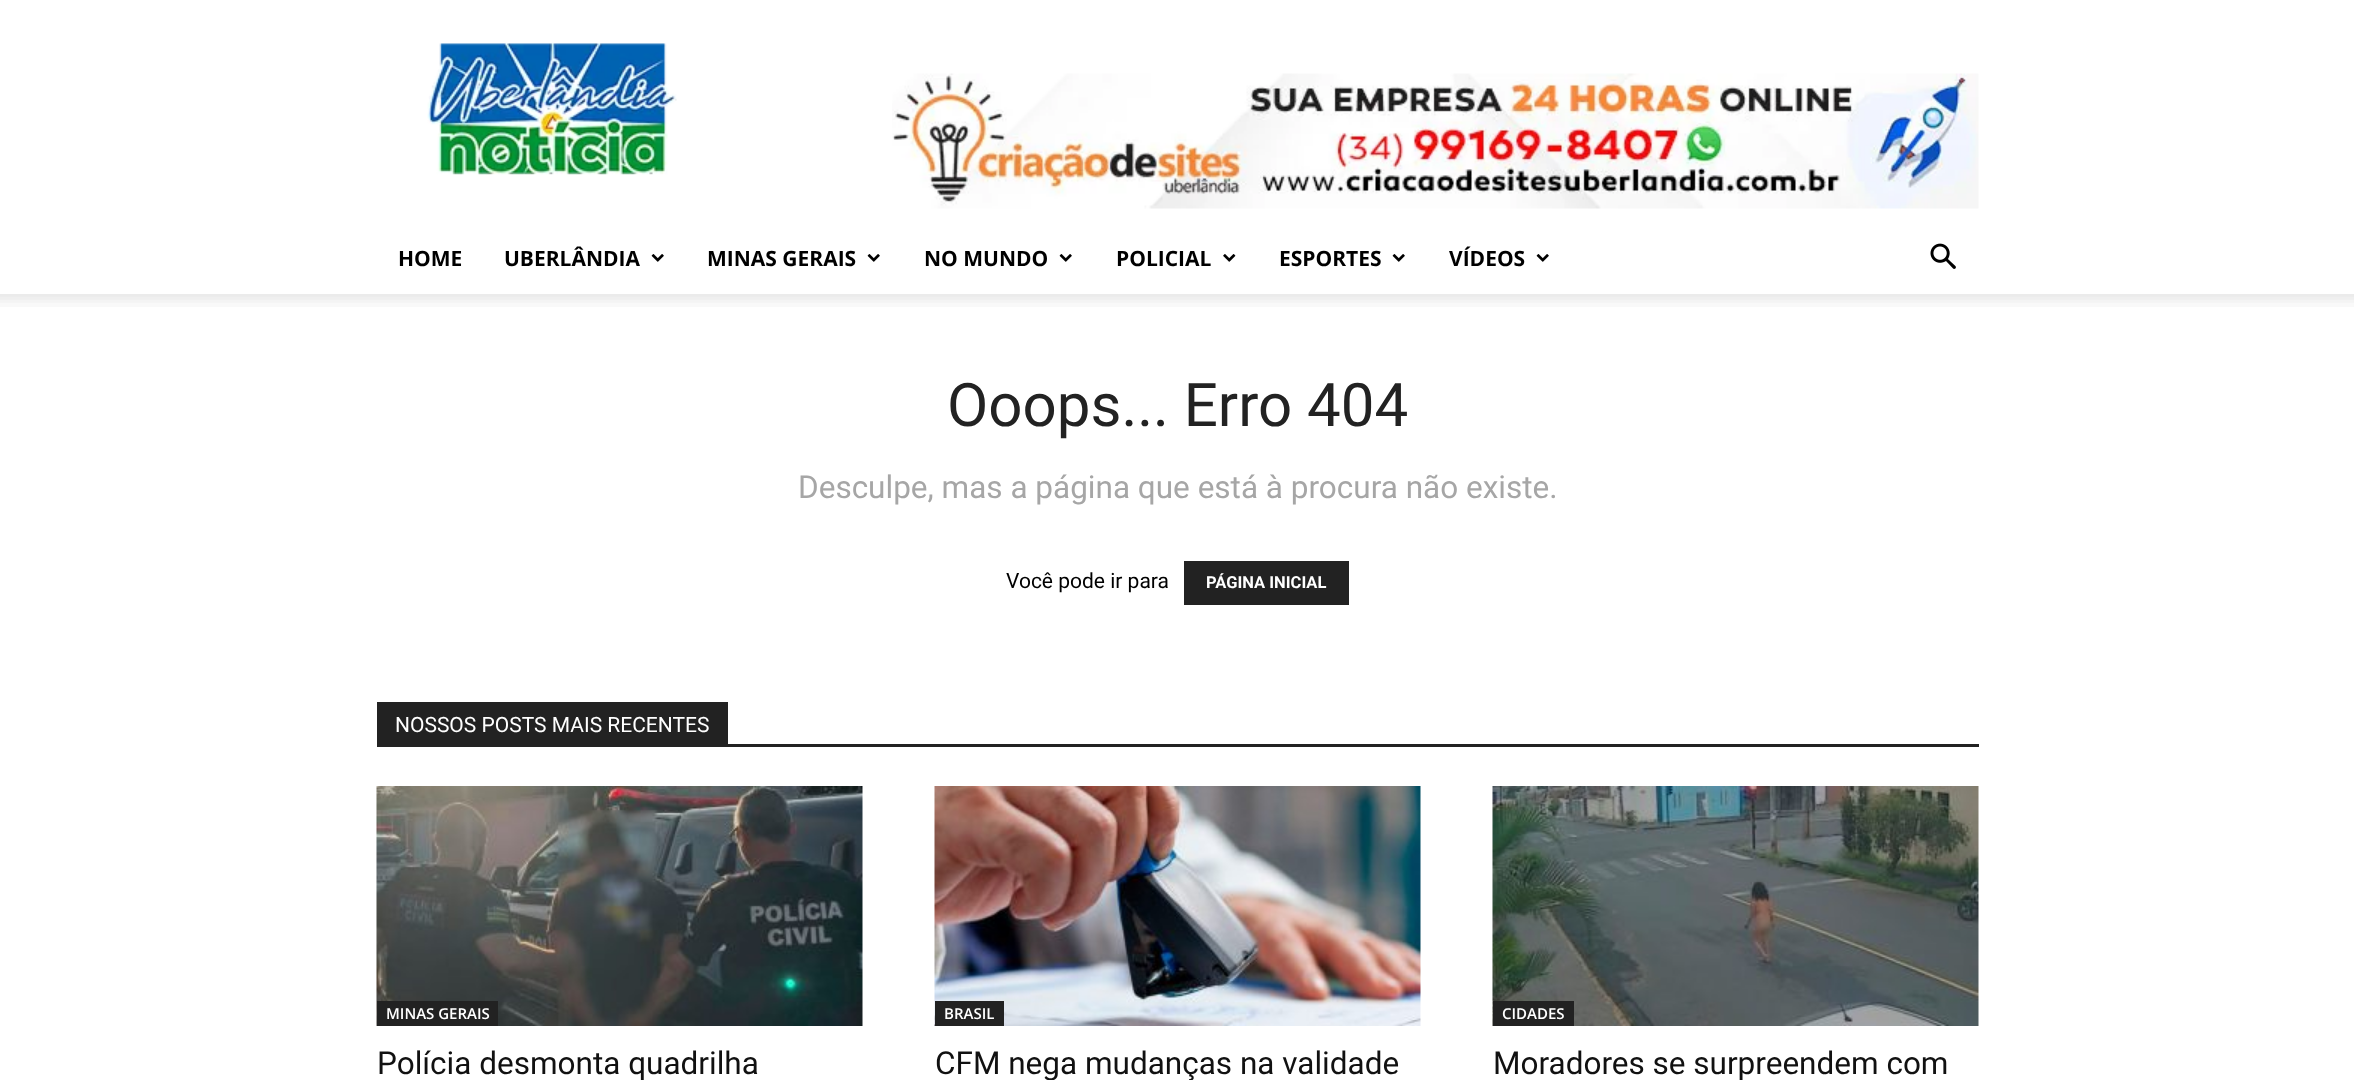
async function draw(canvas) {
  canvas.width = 2354
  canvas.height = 1080
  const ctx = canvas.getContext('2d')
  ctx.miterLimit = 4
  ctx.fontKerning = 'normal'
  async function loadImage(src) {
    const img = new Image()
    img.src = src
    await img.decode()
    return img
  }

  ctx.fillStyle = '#fff'
  ctx.fillRect(0, 0, 2354, 1080)
  ctx.drawImage(await loadImage('image0.png'), 427, 43, 250, 132)
  ctx.drawImage(await loadImage('image1.png'), 892, 73, 1087, 136)
  ctx.font = 'bold 21px Open Sans'
  ctx.fillStyle = '#000'
  ctx.fillText('HOME', 398, 266)
  ctx.fillText('UBERLÂNDIA', 504, 266)
  ctx.drawImage(await loadImage('image2.png'), 651, 254, 13, 8)
  ctx.fillText('MINAS GERAIS', 707, 266)
  ctx.drawImage(await loadImage('image2.png'), 867, 254, 13, 8)
  ctx.fillText('NO MUNDO', 924, 266)
  ctx.drawImage(await loadImage('image2.png'), 1059, 254, 13, 8)
  ctx.fillText('POLICIAL', 1116, 266)
  ctx.drawImage(await loadImage('image3.png'), 1223, 254, 13, 8)
  ctx.fillText('ESPORTES', 1279, 266)
  ctx.drawImage(await loadImage('image2.png'), 1392, 254, 13, 8)
  ctx.fillText('VÍDEOS', 1449, 266)
  ctx.drawImage(await loadImage('image2.png'), 1536, 254, 13, 8)
  ctx.drawImage(await loadImage('image4.png'), 1930, 243, 26, 26)
  ctx.drawImage(await loadImage('image5.png'), 0, 294, 2354, 13)
  ctx.font = '60px Roboto'
  ctx.fillStyle = '#222'
  ctx.fillText('Ooops... Erro 404', 947, 426)
  ctx.font = '31.5px Roboto'
  ctx.fillStyle = '#a6a6a6'
  ctx.fillText('Desculpe, mas a página que está à procura não existe.', 798, 498)
  ctx.font = '21px Roboto'
  ctx.fillStyle = '#000'
  ctx.fillText('Você pode ir para', 1006, 588)
  ctx.fillStyle = '#222'
  ctx.fillRect(1184, 561, 165, 44)
  ctx.font = 'bold 16.5px Roboto'
  ctx.fillStyle = '#fff'
  ctx.fillText('PÁGINA INICIAL', 1206, 588)
  ctx.fillStyle = '#222'
  ctx.fillRect(377, 744, 1602, 3)
  ctx.fillRect(377, 702, 351, 42)
  ctx.font = '21px Roboto'
  ctx.fillStyle = '#fff'
  ctx.fillText('NOSSOS POSTS MAIS RECENTES', 395, 732)
  ctx.drawImage(await loadImage('image6.png'), 376, 786, 487, 240)
  ctx.fillStyle = '#222'
  ctx.fillRect(377, 1001, 121, 25)
  ctx.font = '600 15px Open Sans'
  ctx.fillStyle = '#fff'
  ctx.fillText('MINAS GERAIS', 386, 1019)
  ctx.font = '31.5px Roboto'
  ctx.fillStyle = '#111'
  ctx.fillText('Polícia desmonta quadrilha', 377, 1074)
  ctx.drawImage(await loadImage('image7.png'), 934, 786, 487, 240)
  ctx.fillStyle = '#222'
  ctx.fillRect(935, 1001, 69, 25)
  ctx.font = '600 15px Open Sans'
  ctx.fillStyle = '#fff'
  ctx.fillText('BRASIL', 944, 1019)
  ctx.font = '31.5px Roboto'
  ctx.fillStyle = '#111'
  ctx.fillText('CFM nega mudanças na validade', 935, 1074)
  ctx.drawImage(await loadImage('image8.png'), 1492, 786, 487, 240)
  ctx.fillStyle = '#222'
  ctx.fillRect(1493, 1001, 81, 25)
  ctx.font = '600 15px Open Sans'
  ctx.fillStyle = '#fff'
  ctx.fillText('CIDADES', 1502, 1019)
  ctx.font = '31.5px Roboto'
  ctx.fillStyle = '#111'
  ctx.fillText('Moradores se surpreendem com', 1493, 1074)
}

draw(document.querySelector('canvas'))
